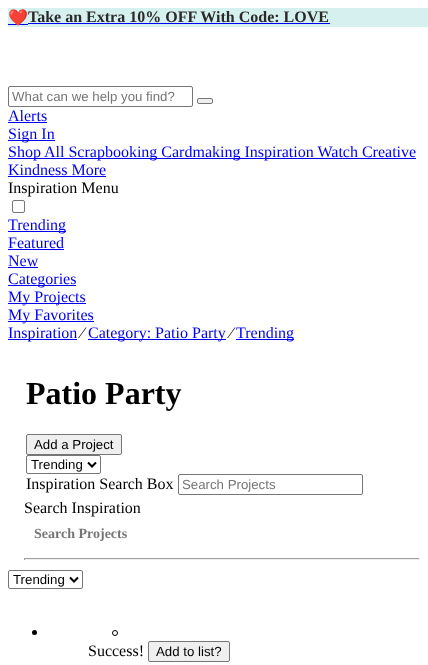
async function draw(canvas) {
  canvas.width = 428
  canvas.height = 665
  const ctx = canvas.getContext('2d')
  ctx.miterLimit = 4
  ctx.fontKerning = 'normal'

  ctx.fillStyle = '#fff'
  ctx.fillRect(0, 0, 428, 665)
  ctx.fillStyle = '#d5f0ee'
  ctx.fillRect(8, 8, 420, 19)
  ctx.fillStyle = '#00e'
  ctx.fillRect(8, 24, 20, 1)
  ctx.font = '16px Noto Color Emoji'
  ctx.fillStyle = '#2a2a2a'
  ctx.fillText('❤️', 8, 23)
  ctx.font = 'bold 16px Liberation Serif'
  ctx.fillText('Take an Extra 10% OFF With Code: LOVE', 28, 22)
  ctx.fillStyle = '#00e'
  ctx.fillRect(28, 23, 302, 1)
  ctx.beginPath()
  ctx.roundRect(8.5, 86.5, 184, 20, 1.5)
  ctx.strokeStyle = '#767676'
  ctx.stroke()
  ctx.font = '13.25px Liberation Sans'
  ctx.fillStyle = '#757575'
  ctx.fillText('What can we help you find?', 12, 101)
  ctx.fillStyle = '#efefef'
  ctx.beginPath()
  ctx.roundRect(197.5, 98.5, 15, 5, 1.5)
  ctx.fill()
  ctx.stroke()
  ctx.font = '16px Liberation Serif'
  ctx.fillStyle = '#00e'
  ctx.fillText('Alerts', 8, 121)
  ctx.fillRect(8, 122, 39, 1)
  ctx.fillRect(8, 140, 47, 1)
  ctx.fillText('Sign In', 8, 139)
  ctx.fillRect(8, 158, 408, 1)
  ctx.fillText('Shop All Scrapbooking Cardmaking Inspiration Watch Creative', 8, 157)
  ctx.fillText('Kindness More', 8, 175)
  ctx.fillRect(8, 176, 98, 1)
  ctx.fillStyle = '#000'
  ctx.fillText('Inspiration Menu', 8, 193)
  ctx.beginPath()
  ctx.roundRect(12.5, 200.5, 12, 12, 1.5)
  ctx.stroke()
  ctx.fillStyle = '#00e'
  ctx.fillRect(8, 231, 58, 1)
  ctx.fillText('Trending', 8, 230)
  ctx.fillText('Featured', 8, 248)
  ctx.fillRect(8, 249, 56, 1)
  ctx.fillText('New', 8, 266)
  ctx.fillRect(8, 267, 30, 1)
  ctx.fillRect(8, 285, 68, 1)
  ctx.fillText('Categories', 8, 284)
  ctx.fillRect(8, 303, 78, 1)
  ctx.fillText('My Projects', 8, 302)
  ctx.fillRect(8, 321, 86, 1)
  ctx.fillText('My Favorites', 8, 320)
  ctx.fillRect(8, 339, 69, 1)
  ctx.fillText('Inspiration', 8, 338)
  ctx.fillStyle = '#000'
  ctx.fillText('⁄', 81, 338)
  ctx.fillStyle = '#00e'
  ctx.fillRect(88, 339, 138, 1)
  ctx.fillText('Category: Patio Party', 88, 338)
  ctx.fillStyle = '#000'
  ctx.fillText('⁄', 230, 338)
  ctx.fillStyle = '#00e'
  ctx.fillRect(236, 339, 58, 1)
  ctx.fillText('Trending', 236, 338)
  ctx.font = 'bold 32px Liberation Serif'
  ctx.fillStyle = '#000'
  ctx.fillText('Patio Party', 26, 404)
  ctx.fillStyle = '#efefef'
  ctx.beginPath()
  ctx.roundRect(26.5, 434.5, 95, 20, 1.5)
  ctx.fill()
  ctx.stroke()
  ctx.font = '13.25px Liberation Sans'
  ctx.fillStyle = '#000'
  ctx.fillText('Add a Project', 34, 449)
  ctx.beginPath()
  ctx.roundRect(26.5, 455.5, 74, 18, 1.5)
  ctx.stroke()
  ctx.beginPath()
  ctx.moveTo(88, 462.5)
  ctx.lineTo(92, 466.5)
  ctx.lineTo(96, 462.5)
  ctx.strokeStyle = '#000'
  ctx.lineWidth = 2
  ctx.stroke()
  ctx.fillText('Trending', 31, 469)
  ctx.font = '16px Liberation Serif'
  ctx.fillText('Inspiration Search Box', 26, 489)
  ctx.beginPath()
  ctx.roundRect(178.5, 474.5, 184, 20, 1.5)
  ctx.strokeStyle = '#767676'
  ctx.lineWidth = 1
  ctx.stroke()
  ctx.font = '13.25px Liberation Sans'
  ctx.fillStyle = '#757575'
  ctx.fillText('Search Projects', 182, 489)
  ctx.font = '16px Liberation Serif'
  ctx.fillStyle = '#000'
  ctx.fillText('Search Inspiration', 24, 513)
  ctx.font = 'bold 14px Liberation Serif'
  ctx.fillStyle = '#757575'
  ctx.fillText('Search Projects', 34, 538)
  ctx.fillStyle = '#9f9f9f'
  ctx.fillRect(24, 558, 396, 1)
  ctx.fillStyle = '#eee'
  ctx.fillRect(419, 558, 1, 2)
  ctx.fillRect(24, 559, 396, 1)
  ctx.fillStyle = '#9f9f9f'
  ctx.fillRect(24, 558, 1, 2)
  ctx.beginPath()
  ctx.roundRect(8.5, 570.5, 74, 18, 1.5)
  ctx.stroke()
  ctx.beginPath()
  ctx.moveTo(70, 577.5)
  ctx.lineTo(74, 581.5)
  ctx.lineTo(78, 577.5)
  ctx.strokeStyle = '#000'
  ctx.lineWidth = 2
  ctx.stroke()
  ctx.font = '13.25px Liberation Sans'
  ctx.fillStyle = '#000'
  ctx.fillText('Trending', 13, 584)
  ctx.beginPath()
  ctx.arc(34.5, 632.5, 2.5, 0, 2 * Math.PI)
  ctx.fill()
  ctx.beginPath()
  ctx.arc(115, 633, 2.5, 0, 2 * Math.PI)
  ctx.lineWidth = 1
  ctx.stroke()
  ctx.font = '16px Liberation Serif'
  ctx.fillText('Success!', 88, 656)
  ctx.fillStyle = '#efefef'
  ctx.beginPath()
  ctx.roundRect(148.5, 641.5, 81, 20, 1.5)
  ctx.fill()
  ctx.strokeStyle = '#767676'
  ctx.stroke()
  ctx.font = '13.25px Liberation Sans'
  ctx.fillStyle = '#000'
  ctx.fillText('Add to list?', 156, 656)
}

draw(document.querySelector('canvas'))
